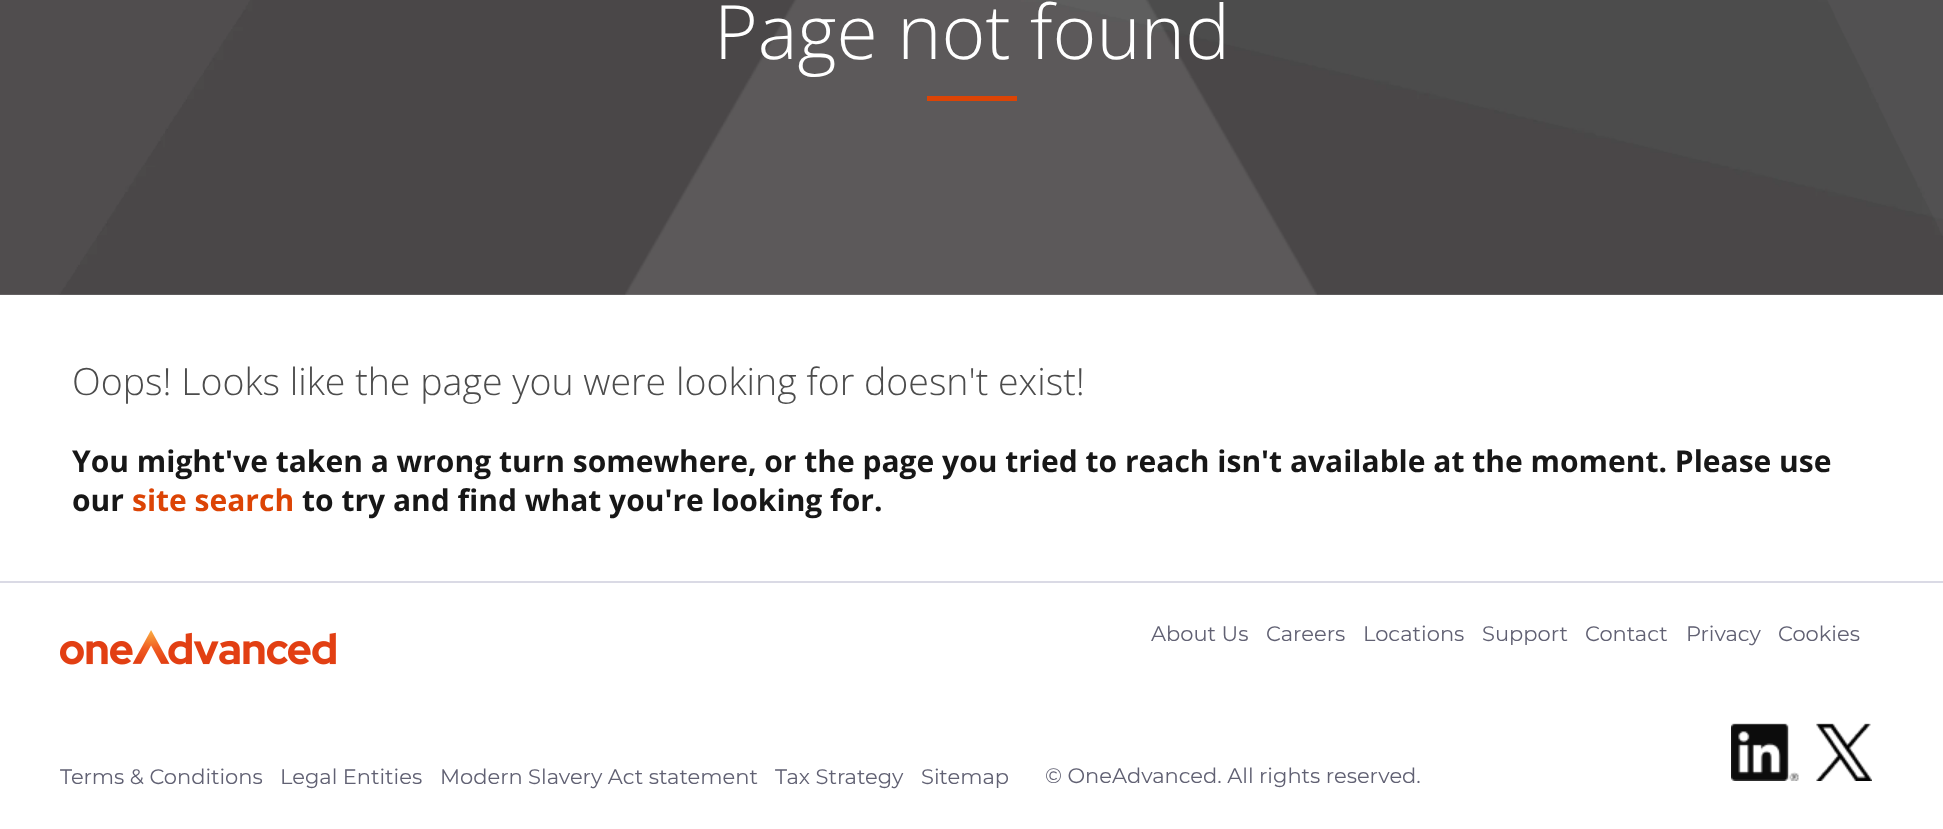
async function draw(canvas) {
  canvas.width = 1943
  canvas.height = 829
  const ctx = canvas.getContext('2d')
  ctx.miterLimit = 4
  ctx.fontKerning = 'normal'
  async function loadImage(src) {
    const img = new Image()
    img.src = src
    await img.decode()
    return img
  }

  ctx.fillStyle = '#fff'
  ctx.fillRect(0, 0, 1943, 829)
  ctx.drawImage(await loadImage('image0.png'), 0, 0, 1943, 295)
  ctx.drawImage(await loadImage('image1.png'), 625, 0, 692, 295)
  ctx.font = '300 75px Open Sans'
  ctx.fillText('Page not found', 714, 59)
  ctx.fillStyle = '#dc4405'
  ctx.fillRect(927, 96, 90, 5)
  ctx.font = '300 37.5px Open Sans'
  ctx.fillStyle = '#4c4c4c'
  ctx.fillText('Oops! Looks like the page you were looking for doesn\'t exist!', 72, 395)
  ctx.font = 'bold 30px Open Sans'
  ctx.fillStyle = '#171717'
  ctx.fillText('You might\'ve taken a wrong turn somewhere, or the page you tried to reach isn\'t available at the moment. Please use', 72, 472)
  ctx.fillText('our', 72, 511)
  ctx.fillStyle = '#dc4405'
  ctx.fillText('site search', 132, 511)
  ctx.fillStyle = '#171717'
  ctx.fillText('to try and find what you\'re looking for.', 302, 511)
  ctx.fillStyle = '#dadae5'
  ctx.fillRect(0, 581, 1943, 2)
  ctx.drawImage(await loadImage('image2.png'), 60, 630, 276, 35)
  ctx.font = '21px Montserrat'
  ctx.fillStyle = '#616173'
  ctx.fillText('About Us', 1151, 641)
  ctx.fillText('Careers', 1266, 641)
  ctx.fillText('Locations', 1363, 641)
  ctx.fillText('Support', 1482, 641)
  ctx.fillText('Contact', 1585, 641)
  ctx.fillText('Privacy', 1686, 641)
  ctx.fillText('Cookies', 1778, 641)
  ctx.fillText('Terms & Conditions', 60, 784)
  ctx.fillText('Legal Entities', 280, 784)
  ctx.fillText('Modern Slavery Act statement', 440, 784)
  ctx.fillText('Tax Strategy', 775, 784)
  ctx.fillText('Sitemap', 921, 784)
  ctx.fillText('© OneAdvanced. All rights reserved.', 1045, 783)
  ctx.drawImage(await loadImage('image3.png'), 1731, 723, 68, 58)
  ctx.drawImage(await loadImage('image4.png'), 1816, 723, 56, 58)
}

draw(document.querySelector('canvas'))
